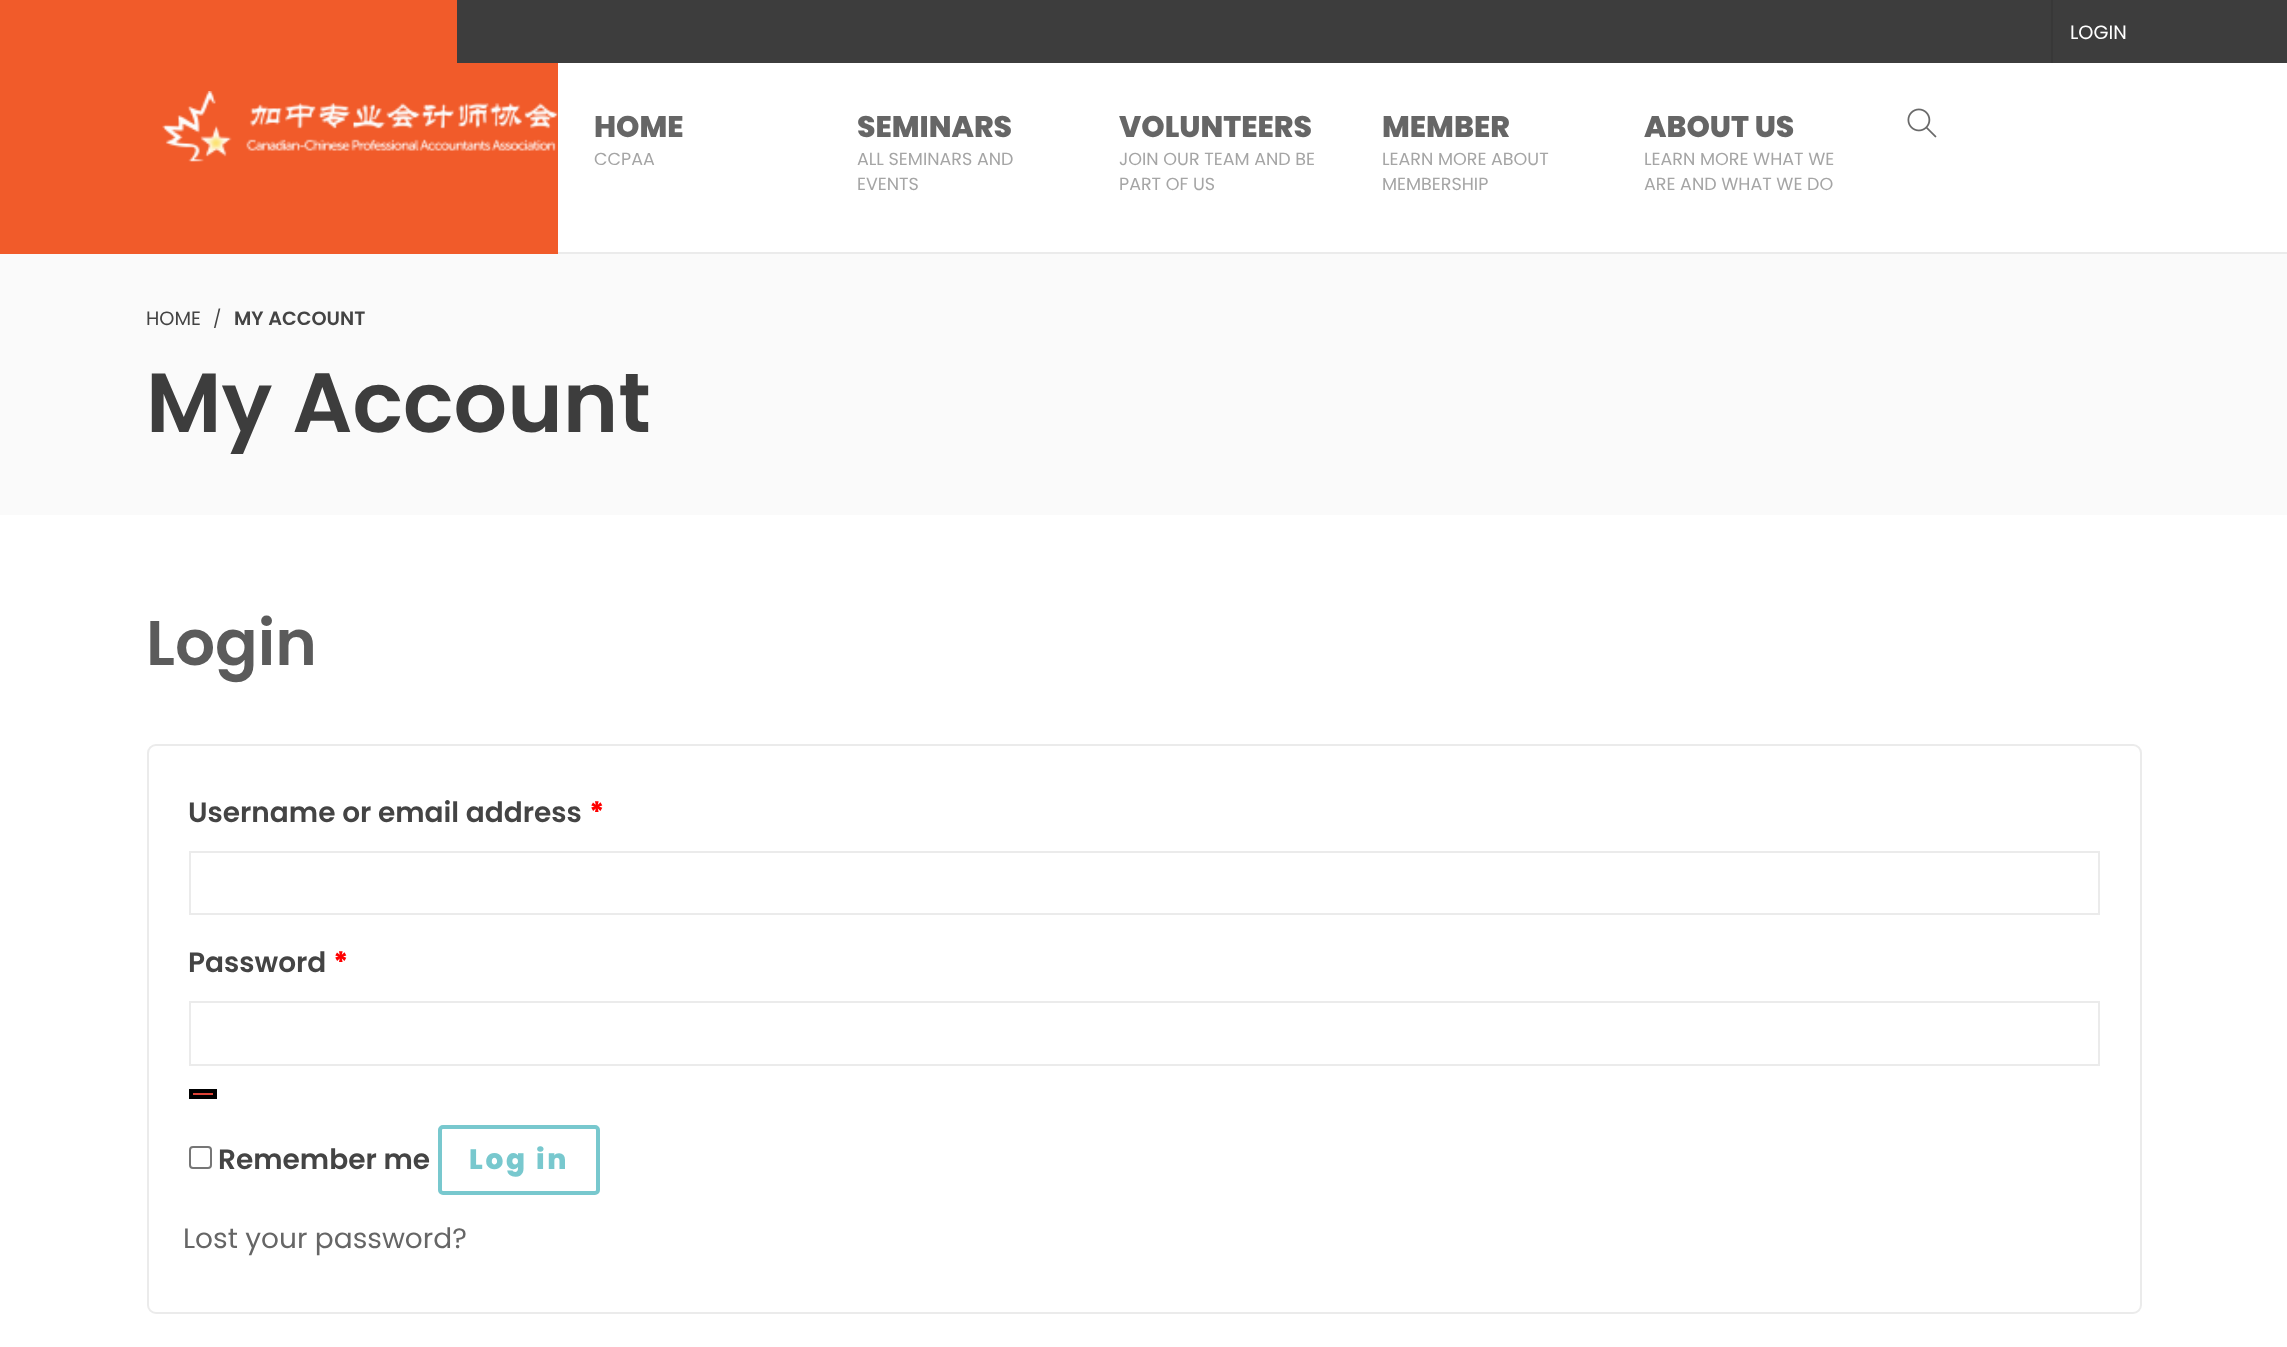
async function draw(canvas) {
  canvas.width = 2287
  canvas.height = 1347
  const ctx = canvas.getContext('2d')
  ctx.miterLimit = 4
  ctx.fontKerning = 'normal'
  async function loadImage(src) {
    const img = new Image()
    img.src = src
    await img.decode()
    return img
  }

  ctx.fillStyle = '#fff'
  ctx.fillRect(0, 0, 2287, 1347)
  ctx.fillStyle = '#ebebeb'
  ctx.fillRect(558, 252, 1729, 2)
  ctx.fillStyle = '#f15b2a'
  ctx.fillRect(0, 63, 558, 191)
  ctx.fillStyle = '#3d3d3d'
  ctx.fillRect(457, 0, 1830, 63)
  ctx.fillStyle = '#f15b2a'
  ctx.fillRect(0, 0, 457, 63)
  ctx.fillStyle = '#383838'
  ctx.fillRect(2051, 0, 2, 63)
  ctx.font = '19.25px Poppins'
  ctx.fillStyle = '#fff'
  ctx.fillText('LOGIN', 2070, 39)
  ctx.drawImage(await loadImage('image0.png'), 162, 91, 396, 71)
  ctx.font = '800 29.75px Poppins'
  ctx.fillStyle = '#666'
  ctx.fillText('HOME', 594, 137)
  ctx.font = '17.5px Poppins'
  ctx.fillStyle = '#a5a5a5'
  ctx.fillText('CCPAA', 594, 165)
  ctx.font = '800 29.75px Poppins'
  ctx.fillStyle = '#666'
  ctx.fillText('SEMINARS', 857, 137)
  ctx.font = '17.5px Poppins'
  ctx.fillStyle = '#a5a5a5'
  ctx.fillText('ALL SEMINARS AND', 857, 165)
  ctx.fillText('EVENTS', 857, 190)
  ctx.font = '800 29.75px Poppins'
  ctx.fillStyle = '#666'
  ctx.fillText('VOLUNTEERS', 1119, 137)
  ctx.font = '17.5px Poppins'
  ctx.fillStyle = '#a5a5a5'
  ctx.fillText('JOIN OUR TEAM AND BE', 1119, 165)
  ctx.fillText('PART OF US', 1119, 190)
  ctx.font = '800 29.75px Poppins'
  ctx.fillStyle = '#666'
  ctx.fillText('MEMBER', 1382, 137)
  ctx.font = '17.5px Poppins'
  ctx.fillStyle = '#a5a5a5'
  ctx.fillText('LEARN MORE ABOUT', 1382, 165)
  ctx.fillText('MEMBERSHIP', 1382, 190)
  ctx.font = '800 29.75px Poppins'
  ctx.fillStyle = '#666'
  ctx.fillText('ABOUT US', 1644, 137)
  ctx.font = '17.5px Poppins'
  ctx.fillStyle = '#a5a5a5'
  ctx.fillText('LEARN MORE WHAT WE', 1644, 165)
  ctx.fillText('ARE AND WHAT WE DO', 1644, 190)
  ctx.drawImage(await loadImage('image1.png'), 1907, 108, 30, 30)
  ctx.fillStyle = '#fafafa'
  ctx.fillRect(0, 254, 2287, 261)
  ctx.font = '19.25px Poppins'
  ctx.fillStyle = '#444'
  ctx.fillText('HOME', 146, 325)
  ctx.font = '17.5px Poppins'
  ctx.fillText('/', 213, 325)
  ctx.font = '600 19.25px Poppins'
  ctx.fillText('MY ACCOUNT', 234, 325)
  ctx.font = '600 84px Poppins'
  ctx.fillStyle = '#3d3d3d'
  ctx.fillText('My Account', 146, 432)
  ctx.font = '600 63px Poppins'
  ctx.fillStyle = '#5b5b5b'
  ctx.fillText('Login', 146, 665)
  ctx.beginPath()
  ctx.roundRect(148, 745, 1993, 568, 8)
  ctx.strokeStyle = '#ebebeb'
  ctx.lineWidth = 2
  ctx.stroke()
  ctx.font = '600 28px Poppins'
  ctx.fillStyle = '#444'
  ctx.fillText('Username or email address', 188, 822)
  ctx.font = '800 28px Poppins'
  ctx.fillStyle = '#f00'
  ctx.fillText('*', 589, 822)
  ctx.strokeRect(190, 852, 1909, 62)
  ctx.font = '600 28px Poppins'
  ctx.fillStyle = '#444'
  ctx.fillText('Password', 188, 972)
  ctx.font = '800 28px Poppins'
  ctx.fillStyle = '#f00'
  ctx.fillText('*', 333, 972)
  ctx.strokeRect(190, 1002, 1909, 63)
  ctx.fillStyle = '#de4337'
  ctx.beginPath()
  ctx.rect(191, 1091, 24, 6)
  ctx.fill()
  ctx.strokeStyle = '#000'
  ctx.lineWidth = 4
  ctx.stroke()
  ctx.beginPath()
  ctx.roundRect(190, 1147, 21, 21, 3)
  ctx.strokeStyle = '#767676'
  ctx.lineWidth = 2
  ctx.stroke()
  ctx.font = '600 28px Poppins'
  ctx.fillStyle = '#444'
  ctx.fillText('Remember me', 218, 1169)
  ctx.beginPath()
  ctx.roundRect(440, 1127, 158, 66, 3)
  ctx.strokeStyle = '#78c8ce'
  ctx.lineWidth = 4
  ctx.stroke()
  ctx.letterSpacing = '2.75px'
  ctx.font = '800 28px Poppins'
  ctx.fillStyle = '#78c8ce'
  ctx.fillText('Log in', 469, 1169)
  ctx.letterSpacing = '0px'
  ctx.font = '28px Poppins'
  ctx.fillStyle = '#666'
  ctx.fillText('Lost your password?', 183, 1248)
}

draw(document.querySelector('canvas'))
